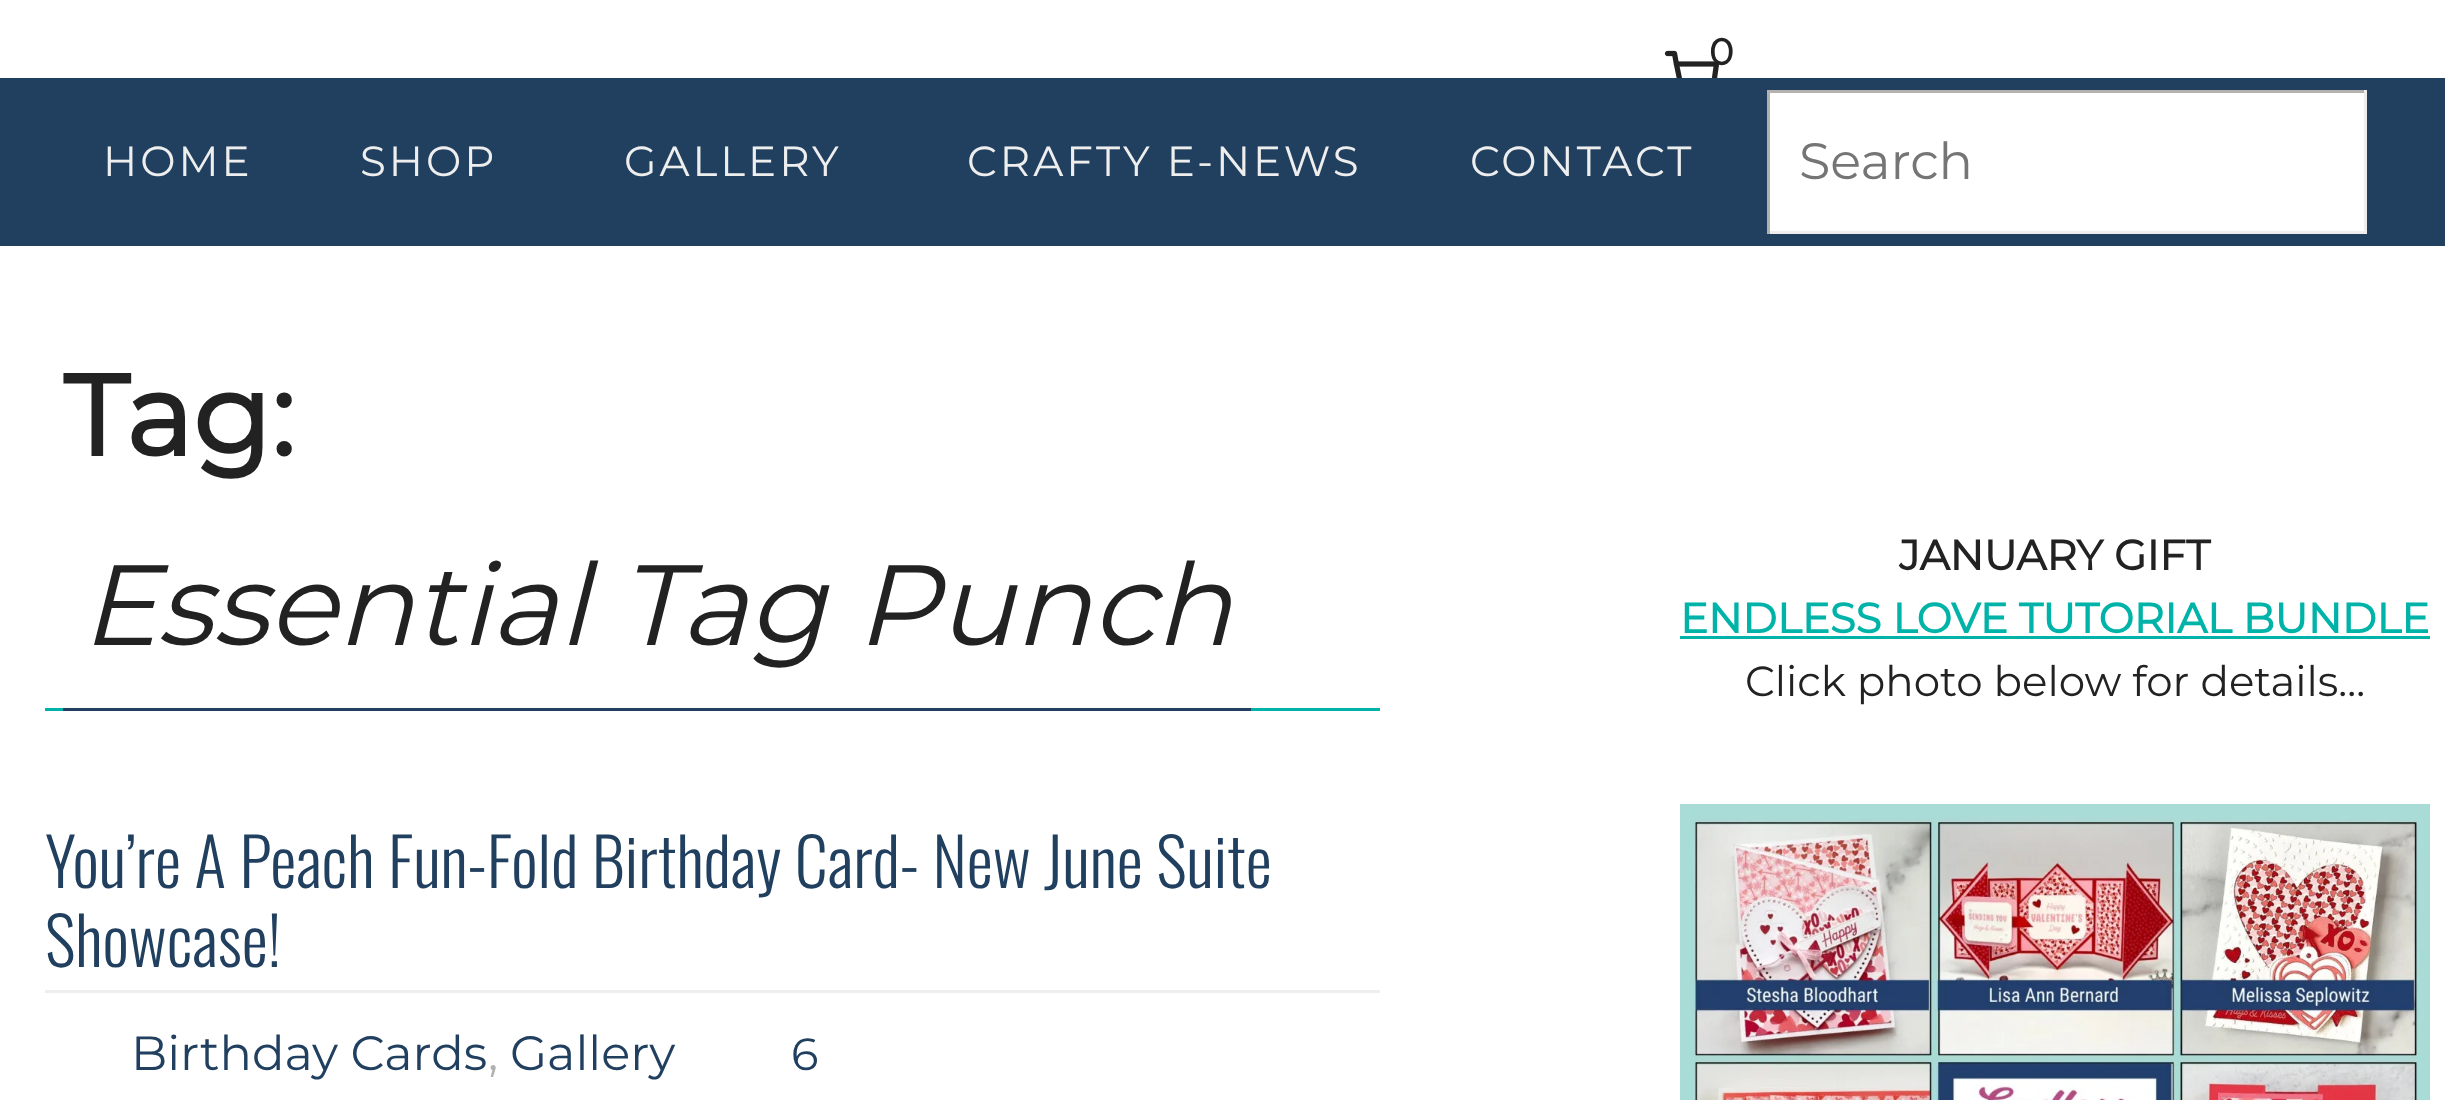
async function draw(canvas) {
  canvas.width = 2445
  canvas.height = 1100
  const ctx = canvas.getContext('2d')
  ctx.miterLimit = 4
  ctx.fontKerning = 'normal'
  async function loadImage(src) {
    const img = new Image()
    img.src = src
    await img.decode()
    return img
  }

  ctx.fillStyle = '#fff'
  ctx.fillRect(0, 0, 2445, 1100)
  ctx.drawImage(await loadImage('image0.png'), 1664, 50, 56, 28)
  ctx.font = 'bold 37px Montserrat'
  ctx.fillStyle = '#222'
  ctx.fillText('0', 1709, 65)
  ctx.fillStyle = '#21405f'
  ctx.fillRect(0, 78, 2445, 168)
  ctx.letterSpacing = '3px'
  ctx.font = '100 42px Montserrat'
  ctx.fillStyle = '#eee'
  ctx.fillText('HOME', 103, 176)
  ctx.fillText('SHOP', 360, 176)
  ctx.fillText('GALLERY', 624, 176)
  ctx.fillText('CRAFTY E-NEWS', 967, 176)
  ctx.fillText('CONTACT', 1470, 176)
  ctx.fillStyle = '#fff'
  ctx.fillRect(1770, 93, 594, 138)
  ctx.fillStyle = '#b4b0ad'
  ctx.fillRect(1767, 90, 600, 3)
  ctx.fillStyle = '#eee'
  ctx.fillRect(2364, 90, 3, 144)
  ctx.fillRect(1767, 231, 600, 3)
  ctx.fillStyle = '#b4b0ad'
  ctx.fillRect(1767, 90, 3, 144)
  ctx.letterSpacing = '0px'
  ctx.font = '100 51px Montserrat'
  ctx.fillStyle = '#757575'
  ctx.fillText('Search', 1799, 179)
  ctx.fillStyle = '#00b3a8'
  ctx.fillRect(45, 708, 1335, 3)
  ctx.font = 'bold 114px Montserrat'
  ctx.fillStyle = '#222'
  ctx.fillText('Tag:', 63, 456)
  ctx.fillStyle = '#21405f'
  ctx.fillRect(63, 708, 1188, 3)
  ctx.font = 'italic 100 114px Montserrat'
  ctx.fillStyle = '#222'
  ctx.fillText('Essential Tag Punch', 81, 645)
  ctx.font = '300 66px Oswald'
  ctx.fillStyle = '#21405f'
  ctx.fillText('You’re A Peach Fun-Fold Birthday Card- New June Suite', 45, 888)
  ctx.fillText('Showcase!', 45, 967)
  ctx.fillStyle = '#eee'
  ctx.fillRect(45, 990, 1335, 3)
  ctx.font = '100 48px Montserrat'
  ctx.fillStyle = '#21405f'
  ctx.fillText('Birthday Cards', 131, 1070)
  ctx.fillStyle = '#b0b0b0'
  ctx.fillText(',', 488, 1070)
  ctx.fillStyle = '#21405f'
  ctx.fillText('Gallery', 510, 1070)
  ctx.font = '100 45px Montserrat'
  ctx.fillText('6', 791, 1070)
  ctx.font = 'bold 42px Montserrat'
  ctx.fillStyle = '#222'
  ctx.fillText('JANUARY GIFT', 1899, 570)
  ctx.fillStyle = '#00b3a8'
  ctx.fillText('ENDLESS LOVE TUTORIAL BUNDLE', 1680, 633)
  ctx.fillRect(1680, 636, 750, 3)
  ctx.font = '100 42px Montserrat'
  ctx.fillStyle = '#222'
  ctx.fillText('Click photo below for details...', 1745, 696)
  ctx.drawImage(await loadImage('image1.png'), 1680, 804, 750, 296)
}

draw(document.querySelector('canvas'))
